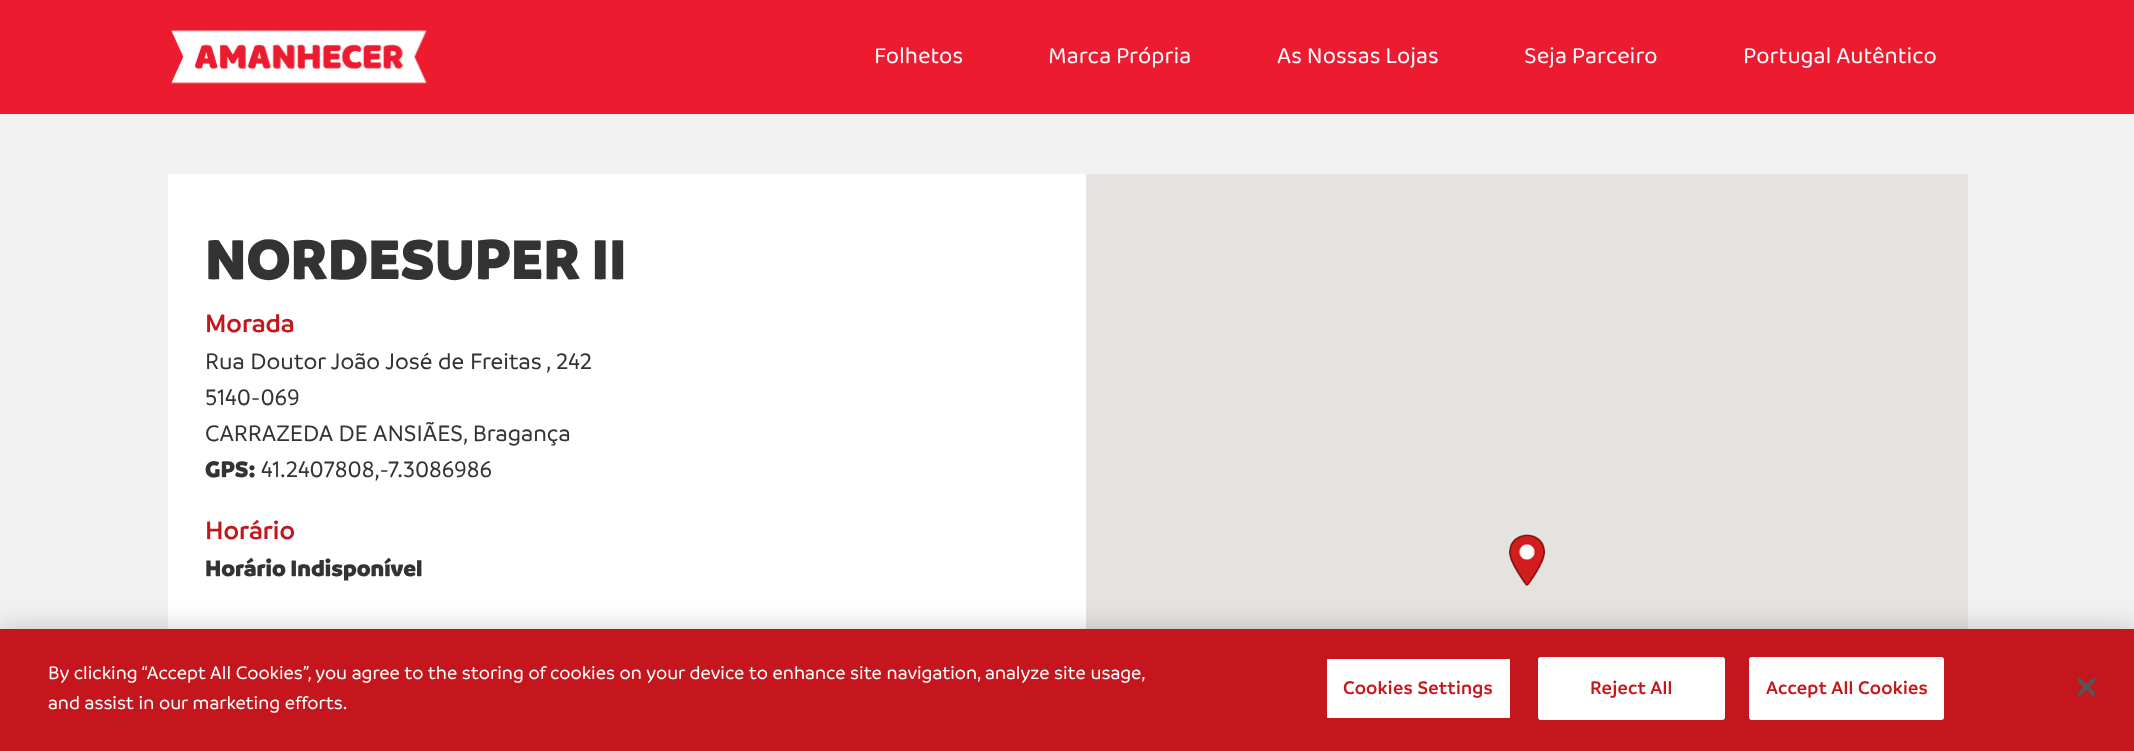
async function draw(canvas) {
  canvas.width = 2134
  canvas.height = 751
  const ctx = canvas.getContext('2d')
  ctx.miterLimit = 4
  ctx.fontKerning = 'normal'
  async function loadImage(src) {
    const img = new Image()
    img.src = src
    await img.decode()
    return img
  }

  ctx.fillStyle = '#f1f1f1'
  ctx.fillRect(0, 0, 2134, 751)
  ctx.fillStyle = '#ed1b2f'
  ctx.fillRect(0, 0, 2134, 114)
  ctx.drawImage(await loadImage('image0.png'), 171, 30, 256, 54)
  ctx.font = '24px "Baloo 2"'
  ctx.fillStyle = '#fff'
  ctx.fillText('Folhetos', 874, 63)
  ctx.fillText('Marca Própria', 1048, 63)
  ctx.fillText('As Nossas Lojas', 1277, 63)
  ctx.fillText('Seja Parceiro', 1524, 63)
  ctx.fillText('Portugal Autêntico', 1743, 63)
  ctx.fillRect(168, 174, 918, 455)
  ctx.font = '900 60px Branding'
  ctx.fillStyle = '#333'
  ctx.fillText('NORDESUPER II', 205, 279)
  ctx.font = '600 27px Branding'
  ctx.fillStyle = '#c4161b'
  ctx.fillText('Morada', 205, 332)
  ctx.font = '500 24px Branding'
  ctx.fillStyle = '#333'
  ctx.fillText('Rua Doutor João José de Freitas', 205, 369)
  ctx.fillText(', 242', 546, 369)
  ctx.fillText('5140-069', 205, 405)
  ctx.fillText('CARRAZEDA DE ANSIÃES, Bragança', 205, 441)
  ctx.font = '900 24px Branding'
  ctx.fillText('GPS:', 205, 477)
  ctx.font = '500 24px Branding'
  ctx.fillText('41.2407808,-7.3086986', 261, 477)
  ctx.font = '600 27px Branding'
  ctx.fillStyle = '#c4161b'
  ctx.fillText('Horário', 205, 539)
  ctx.font = '900 24px Branding'
  ctx.fillStyle = '#333'
  ctx.fillText('Horário Indisponível', 205, 576)
  ctx.fillStyle = '#e5e3df'
  ctx.fillRect(1086, 174, 882, 455)
  ctx.drawImage(await loadImage('image1.png'), 1509, 534, 36, 52)
  ctx.fillStyle = '#00000033'
  ctx.filter = 'blur(13.5px)'
  ctx.beginPath()
  ctx.rect(0, 629, 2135, 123)
  ctx.fill()
  ctx.filter = 'none'
  ctx.fillStyle = '#c4161c'
  ctx.fillRect(0, 629, 2134, 122)
  ctx.font = '500 19.5px Branding'
  ctx.fillStyle = '#fff'
  ctx.fillText('By clicking “Accept All Cookies”, you agree to the storing of cookies on your device to enhance site navigation, analyze site usage,', 48, 679)
  ctx.fillText('and assist in our marketing efforts.', 48, 709)
  ctx.beginPath()
  ctx.roundRect(1326, 658, 185, 61, 2)
  ctx.fill()
  ctx.strokeStyle = '#c4161c'
  ctx.lineWidth = 2
  ctx.stroke()
  ctx.letterSpacing = '0.25px'
  ctx.font = '600 19.5px Branding'
  ctx.fillStyle = '#c4161b'
  ctx.fillText('Cookies Settings', 1343, 694)
  ctx.fillStyle = '#fff'
  ctx.beginPath()
  ctx.roundRect(1539, 658, 185, 61, 2)
  ctx.fill()
  ctx.strokeStyle = '#fff'
  ctx.stroke()
  ctx.fillStyle = '#c4161b'
  ctx.fillText('Reject All', 1590, 694)
  ctx.fillStyle = '#fff'
  ctx.beginPath()
  ctx.roundRect(1750, 658, 193, 61, 2)
  ctx.fill()
  ctx.stroke()
  ctx.fillStyle = '#c4161b'
  ctx.fillText('Accept All Cookies', 1766, 694)
  ctx.drawImage(await loadImage('image2.png'), 2078, 678, 18, 18)
}

draw(document.querySelector('canvas'))
